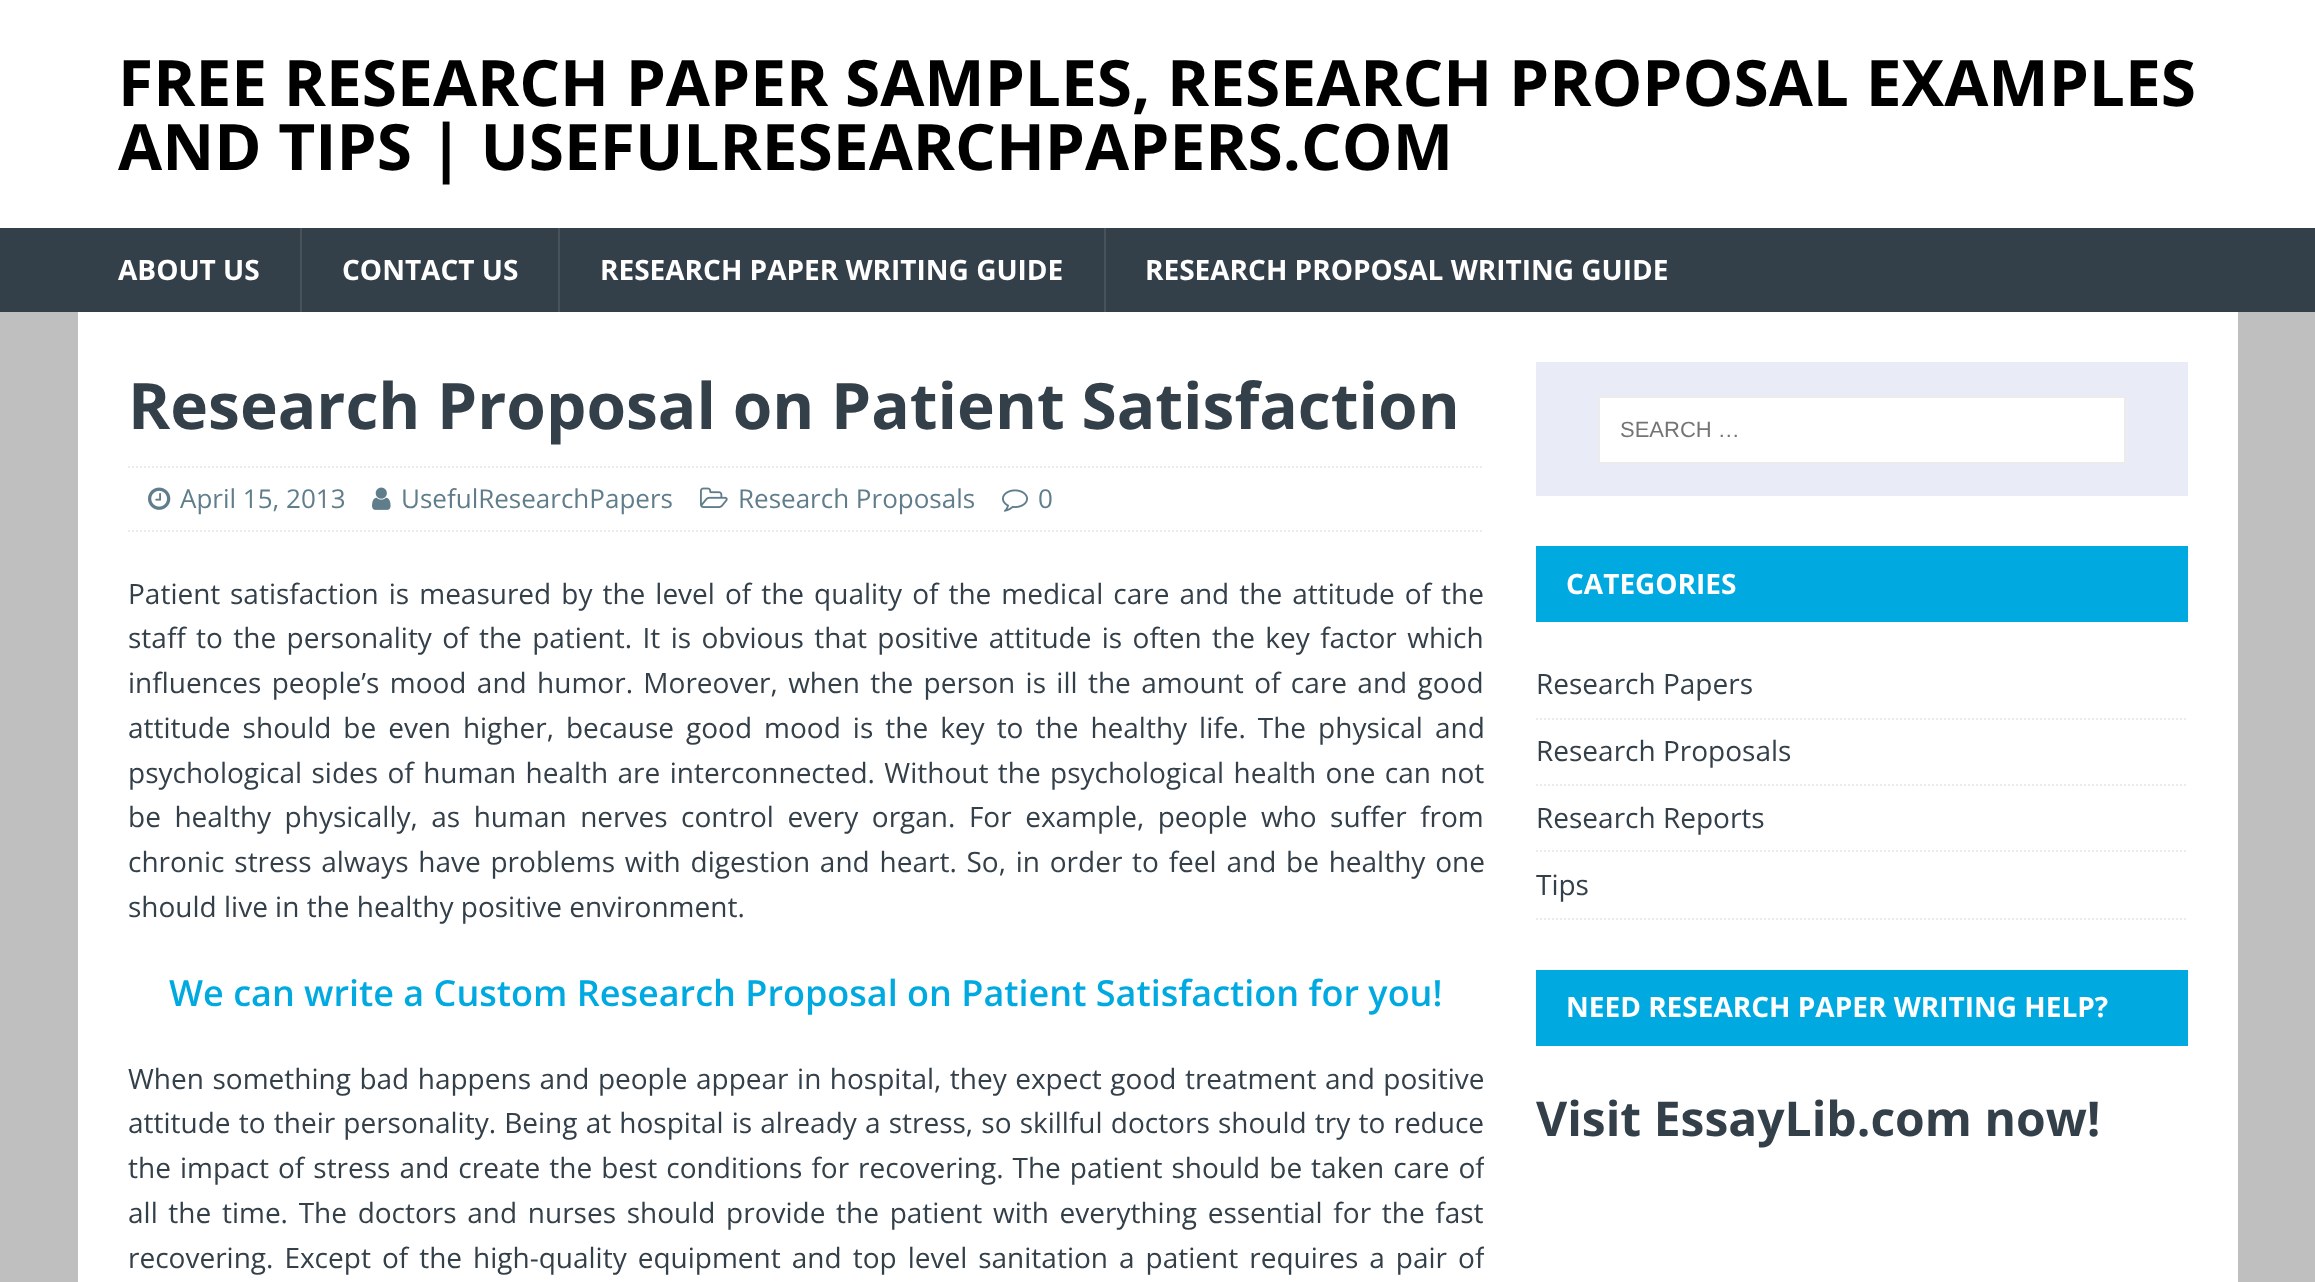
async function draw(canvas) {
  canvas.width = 2315
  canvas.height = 1282
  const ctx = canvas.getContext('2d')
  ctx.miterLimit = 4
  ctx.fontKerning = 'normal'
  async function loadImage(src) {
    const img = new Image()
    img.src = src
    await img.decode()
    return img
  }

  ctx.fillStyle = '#bfbfbf'
  ctx.fillRect(0, 0, 2315, 1282)
  ctx.fillStyle = '#fff'
  ctx.fillRect(0, 0, 2315, 228)
  ctx.font = 'bold 64px Open Sans'
  ctx.fillStyle = '#000'
  ctx.fillText('FREE RESEARCH PAPER SAMPLES, RESEARCH PROPOSAL EXAMPLES', 118, 106)
  ctx.fillText('AND TIPS | USEFULRESEARCHPAPERS.COM', 118, 170)
  ctx.fillStyle = '#333f49'
  ctx.fillRect(0, 228, 2315, 84)
  ctx.font = 'bold 28px Open Sans'
  ctx.fillStyle = '#fff'
  ctx.fillText('ABOUT US', 118, 280)
  ctx.fillStyle = '#47525b'
  ctx.fillRect(300, 228, 2, 84)
  ctx.fillStyle = '#fff'
  ctx.fillText('CONTACT US', 342, 280)
  ctx.fillStyle = '#47525b'
  ctx.fillRect(558, 228, 2, 84)
  ctx.fillStyle = '#fff'
  ctx.fillText('RESEARCH PAPER WRITING GUIDE', 600, 280)
  ctx.fillStyle = '#47525b'
  ctx.fillRect(1104, 228, 2, 84)
  ctx.fillStyle = '#fff'
  ctx.fillText('RESEARCH PROPOSAL WRITING GUIDE', 1145, 280)
  ctx.fillRect(78, 312, 2160, 970)
  ctx.font = 'bold 64px Open Sans'
  ctx.fillStyle = '#333f49'
  ctx.fillText('Research Proposal on Patient Satisfaction', 128, 429)
  ctx.beginPath()
  ctx.moveTo(128, 467)
  ctx.lineTo(1484, 467)
  ctx.strokeStyle = '#ebebeb'
  ctx.lineWidth = 2
  ctx.setLineDash([2, 2])
  ctx.stroke()
  ctx.beginPath()
  ctx.moveTo(128, 531)
  ctx.lineTo(1484, 531)
  ctx.stroke()
  ctx.drawImage(await loadImage('image0.png'), 148, 487, 23, 23)
  ctx.font = '26px Open Sans'
  ctx.fillStyle = '#607d8b'
  ctx.fillText('April 15, 2013', 180, 508)
  ctx.drawImage(await loadImage('image1.png'), 372, 487, 19, 23)
  ctx.fillText('UsefulResearchPapers', 401, 508)
  ctx.drawImage(await loadImage('image2.png'), 700, 487, 28, 21)
  ctx.fillText('Research Proposals', 738, 508)
  ctx.drawImage(await loadImage('image3.png'), 1002, 489, 26, 23)
  ctx.fillText('0', 1038, 508)
  ctx.font = '28px Open Sans'
  ctx.fillStyle = '#333f49'
  ctx.fillText('Patient', 128, 604)
  ctx.wordSpacing = '2.75px'
  ctx.fillText('satisfaction is measured by the level of the quality of the medical care and the attitude of the', 230, 604)
  ctx.wordSpacing = '3.1px'
  ctx.fillText('staff to the personality of the patient. It is obvious that positive attitude is often the key factor which', 128, 648)
  ctx.fillText('influences people’s mood and humor. Moreover, when the person is ill the amount of care and good', 128, 693)
  ctx.wordSpacing = '4.75px'
  ctx.fillText('attitude should be even higher, because good mood is the key to the healthy life. The physical and', 128, 738)
  ctx.wordSpacing = '2.1px'
  ctx.fillText('psychological sides of human health are interconnected. Without the psychological health one can not', 128, 783)
  ctx.wordSpacing = '6.25px'
  ctx.fillText('be healthy physically, as human nerves control every organ. For example, people who suffer from', 128, 827)
  ctx.wordSpacing = '2.5px'
  ctx.fillText('chronic stress always have problems with digestion and heart. So, in order to feel and be healthy one', 128, 872)
  ctx.wordSpacing = '0px'
  ctx.fillText('should live in the healthy positive environment.', 128, 917)
  ctx.font = '600 36px Open Sans'
  ctx.fillStyle = '#00aae1'
  ctx.fillText('We can write a Custom Research Proposal on Patient Satisfaction for you!', 169, 1006)
  ctx.wordSpacing = '1.25px'
  ctx.font = '28px Open Sans'
  ctx.fillStyle = '#333f49'
  ctx.fillText('When something bad happens and people appear in hospital, they expect good treatment and positive', 128, 1089)
  ctx.wordSpacing = '0.9px'
  ctx.fillText('attitude to their personality. Being at hospital is already a stress, so skillful doctors should try to reduce', 128, 1133)
  ctx.save()
  ctx.beginPath()
  ctx.rect(128, 362, 1356, 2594)
  ctx.clip()
  ctx.wordSpacing = '1.75px'
  ctx.fillText('the impact of stress and create the best conditions for recovering. The patient should be taken care of', 128, 1178)
  ctx.restore()
  ctx.wordSpacing = '3.4px'
  ctx.fillText('all the time. The doctors and nurses should provide the patient with everything essential for the fast', 128, 1223)
  ctx.save()
  ctx.beginPath()
  ctx.rect(128, 362, 1356, 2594)
  ctx.clip()
  ctx.wordSpacing = '3.75px'
  ctx.fillText('recovering. Except of the high-quality equipment and top level sanitation a patient requires a pair of', 128, 1268)
  ctx.restore()
  ctx.fillStyle = '#e9ecf6'
  ctx.fillRect(1536, 362, 652, 134)
  ctx.fillStyle = '#fff'
  ctx.beginPath()
  ctx.rect(1599, 397, 526, 66)
  ctx.fill()
  ctx.setLineDash([])
  ctx.stroke()
  ctx.wordSpacing = '0px'
  ctx.font = '22px Liberation Sans'
  ctx.fillStyle = '#757575'
  ctx.fillText('SEARCH …', 1620, 437)
  ctx.fillStyle = '#00aae1'
  ctx.fillRect(1536, 546, 652, 76)
  ctx.font = 'bold 28px Open Sans'
  ctx.fillStyle = '#fff'
  ctx.fillText('CATEGORIES', 1566, 594)
  ctx.beginPath()
  ctx.moveTo(1536, 719)
  ctx.lineTo(2188, 719)
  ctx.setLineDash([2, 2])
  ctx.stroke()
  ctx.font = '28px Open Sans'
  ctx.fillStyle = '#333f49'
  ctx.fillText('Research Papers', 1536, 694)
  ctx.beginPath()
  ctx.moveTo(1536, 785)
  ctx.lineTo(2188, 785)
  ctx.stroke()
  ctx.fillText('Research Proposals', 1536, 761)
  ctx.beginPath()
  ctx.moveTo(1536, 851)
  ctx.lineTo(2188, 851)
  ctx.stroke()
  ctx.fillText('Research Reports', 1536, 828)
  ctx.beginPath()
  ctx.moveTo(1536, 919)
  ctx.lineTo(2188, 919)
  ctx.stroke()
  ctx.fillText('Tips', 1536, 895)
  ctx.fillStyle = '#00aae1'
  ctx.fillRect(1536, 970, 652, 76)
  ctx.font = 'bold 28px Open Sans'
  ctx.fillStyle = '#fff'
  ctx.fillText('NEED RESEARCH PAPER WRITING HELP?', 1566, 1017)
  ctx.font = 'bold 48px Open Sans'
  ctx.fillStyle = '#333f49'
  ctx.fillText('Visit EssayLib.com now!', 1536, 1136)
}

draw(document.querySelector('canvas'))
